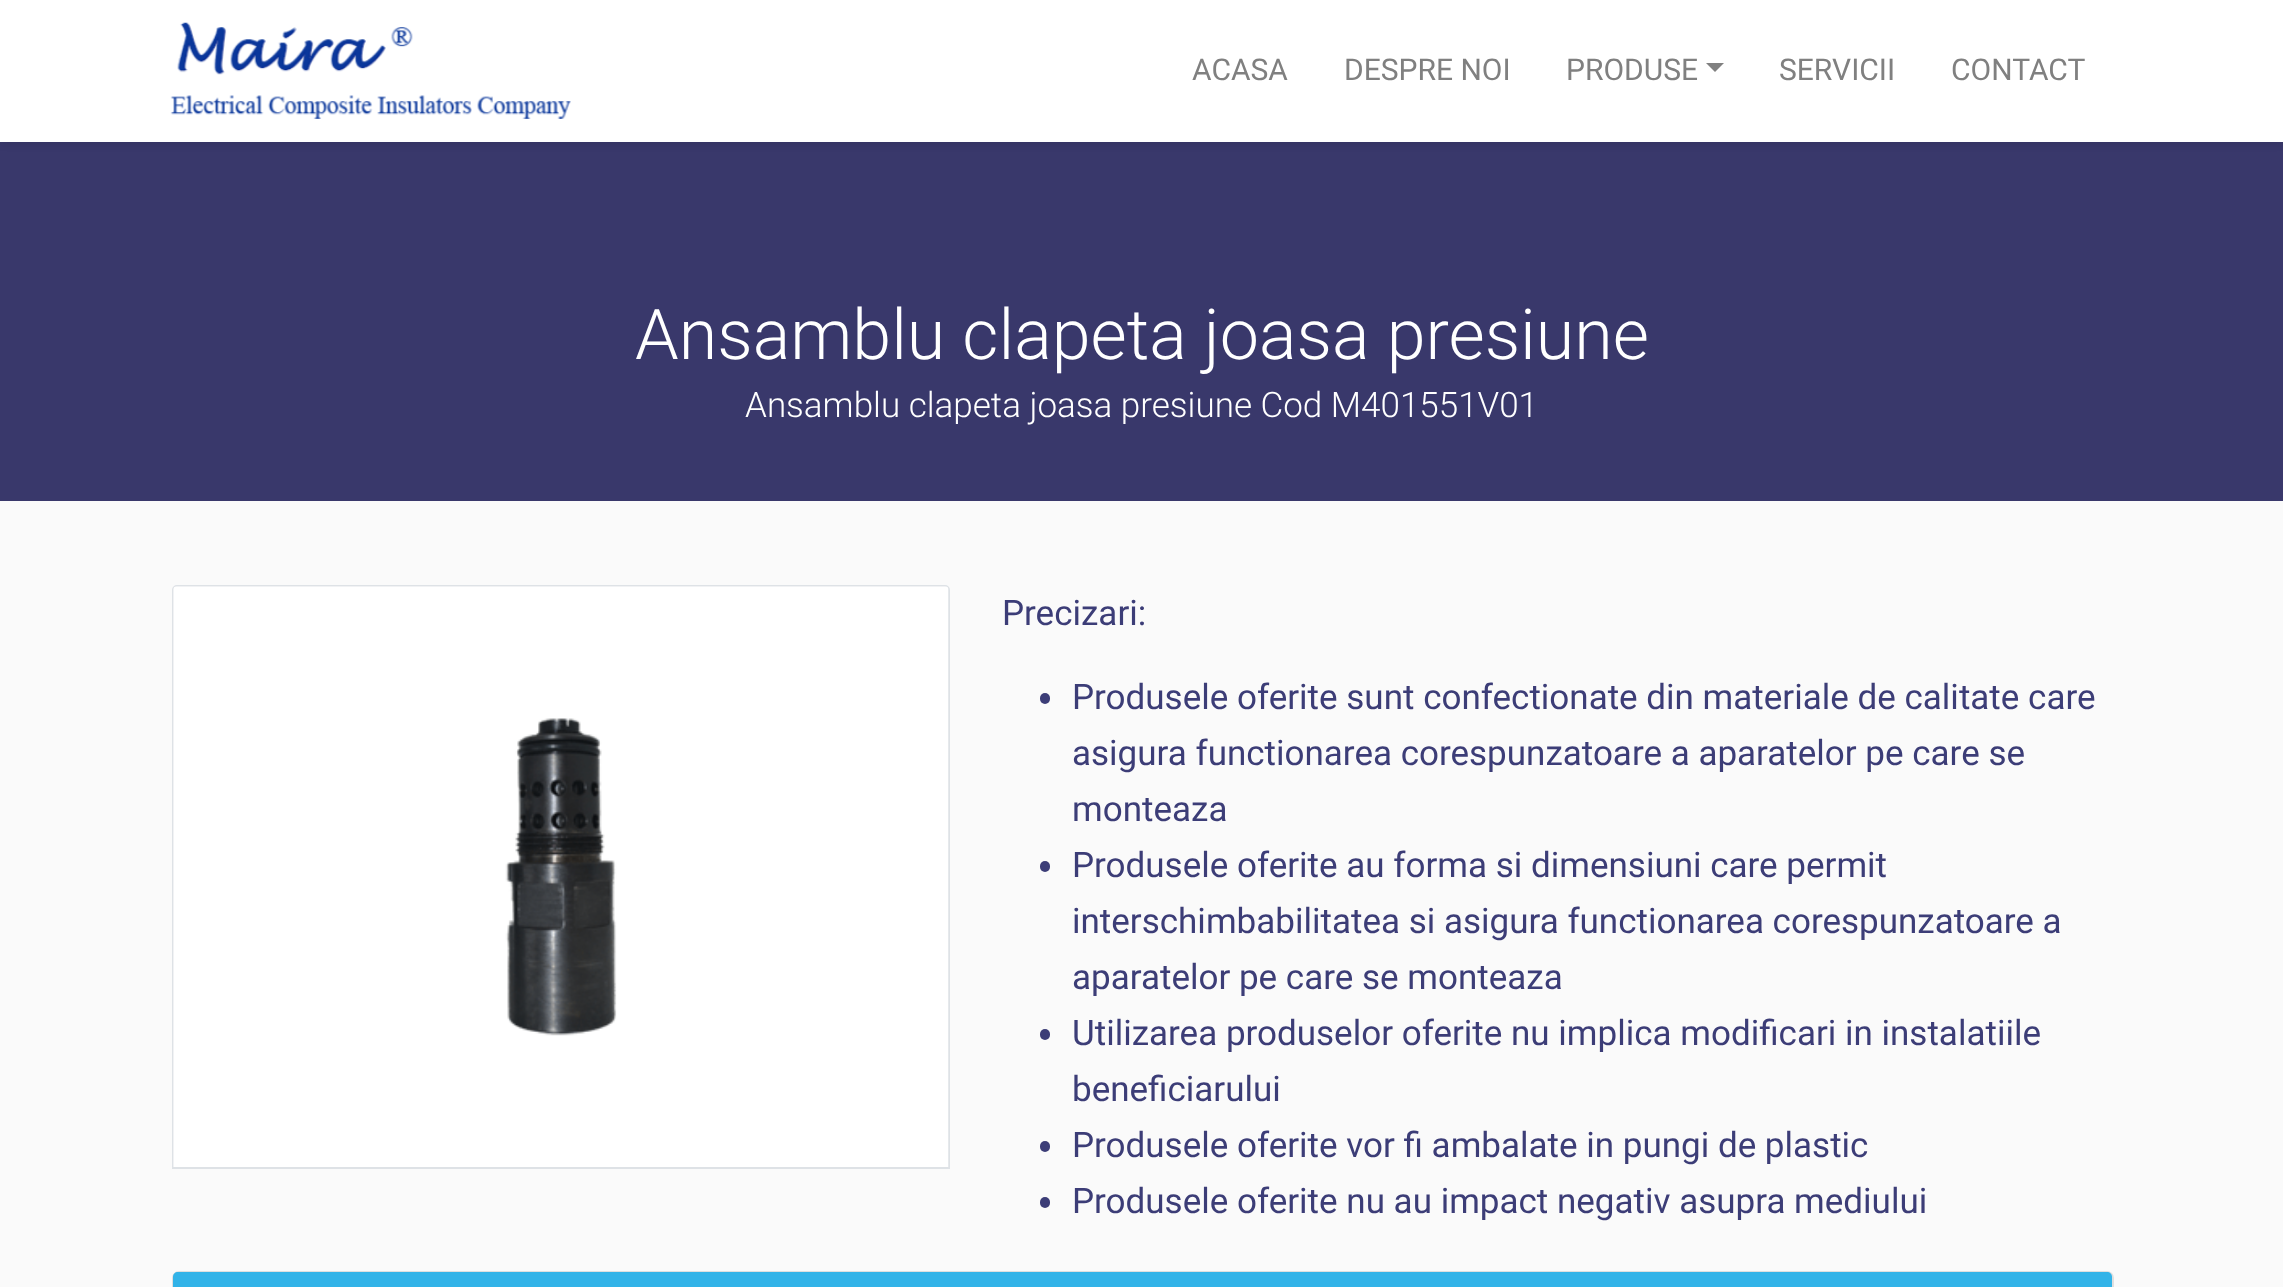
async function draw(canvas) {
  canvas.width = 2283
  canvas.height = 1287
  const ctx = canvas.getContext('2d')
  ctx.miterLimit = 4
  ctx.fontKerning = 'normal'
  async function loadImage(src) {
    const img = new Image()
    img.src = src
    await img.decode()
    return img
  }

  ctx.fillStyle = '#fafafa'
  ctx.fillRect(0, 0, 2283, 1287)
  ctx.fillStyle = '#39386b'
  ctx.fillRect(0, 142, 2283, 359)
  ctx.fillStyle = '#00000012'
  ctx.filter = 'blur(3.5px)'
  ctx.beginPath()
  ctx.rect(0, 4, 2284, 141)
  ctx.fill()
  ctx.filter = 'none'
  ctx.fillStyle = '#fff'
  ctx.fillRect(0, 0, 2283, 142)
  ctx.drawImage(await loadImage('image0.png'), 170, 22, 401, 97)
  ctx.font = '30px Roboto'
  ctx.fillStyle = '#808080'
  ctx.fillText('ACASA', 1192, 80)
  ctx.fillText('DESPRE NOI', 1344, 80)
  ctx.fillText('PRODUSE', 1566, 80)
  ctx.beginPath()
  ctx.moveTo(1706, 63)
  ctx.lineTo(1724, 63)
  ctx.lineTo(1715, 72)
  ctx.closePath()
  ctx.fill()
  ctx.fillText('SERVICII', 1779, 80)
  ctx.fillText('CONTACT', 1951, 80)
  ctx.font = '300 70px Roboto'
  ctx.fillStyle = '#fff'
  ctx.fillText('Ansamblu clapeta joasa presiune', 635, 359)
  ctx.font = '300 35px Roboto'
  ctx.fillText('Ansamblu clapeta joasa presiune Cod M401551V01', 745, 417)
  ctx.beginPath()
  ctx.roundRect(173, 586, 776, 582, [4, 4, 0, 0])
  ctx.strokeStyle = '#dee2e6'
  ctx.lineWidth = 2
  ctx.stroke()
  ctx.drawImage(await loadImage('image1.png'), 173, 586, 776, 581)
  ctx.font = '35px Roboto'
  ctx.fillStyle = '#3c3d77'
  ctx.fillText('Precizari:', 1002, 625)
  ctx.beginPath()
  ctx.roundRect(1040, 693, 10, 11, 5)
  ctx.fill()
  ctx.fillText('Produsele oferite sunt confectionate din materiale de calitate care', 1072, 709)
  ctx.fillText('asigura functionarea corespunzatoare a aparatelor pe care se', 1072, 765)
  ctx.fillText('monteaza', 1072, 821)
  ctx.beginPath()
  ctx.roundRect(1040, 861, 10, 11, 5)
  ctx.fill()
  ctx.fillText('Produsele oferite au forma si dimensiuni care permit', 1072, 877)
  ctx.fillText('interschimbabilitatea si asigura functionarea corespunzatoare a', 1072, 933)
  ctx.fillText('aparatelor pe care se monteaza', 1072, 989)
  ctx.beginPath()
  ctx.roundRect(1040, 1029, 10, 11, 5)
  ctx.fill()
  ctx.fillText('Utilizarea produselor oferite nu implica modificari in instalatiile', 1072, 1045)
  ctx.fillText('beneficiarului', 1072, 1101)
  ctx.beginPath()
  ctx.roundRect(1040, 1141, 10, 11, 5)
  ctx.fill()
  ctx.fillText('Produsele oferite vor fi ambalate in pungi de plastic', 1072, 1157)
  ctx.beginPath()
  ctx.roundRect(1040, 1197, 10, 11, 5)
  ctx.fill()
  ctx.fillText('Produsele oferite nu au impact negativ asupra mediului', 1072, 1213)
  ctx.beginPath()
  ctx.roundRect(173, 1272, 1940, 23, 6)
  ctx.strokeStyle = '#dfdfdf'
  ctx.stroke()
  ctx.fillStyle = '#32b3e8'
  ctx.beginPath()
  ctx.moveTo(178, 1272)
  ctx.lineTo(2107, 1272)
  ctx.bezierCurveTo(2110, 1272, 2112, 1274, 2112, 1277)
  ctx.lineTo(2112, 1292)
  ctx.lineTo(173, 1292)
  ctx.lineTo(173, 1277)
  ctx.bezierCurveTo(173, 1274, 175, 1272, 178, 1272)
  ctx.closePath()
  ctx.fill()
}

draw(document.querySelector('canvas'))
